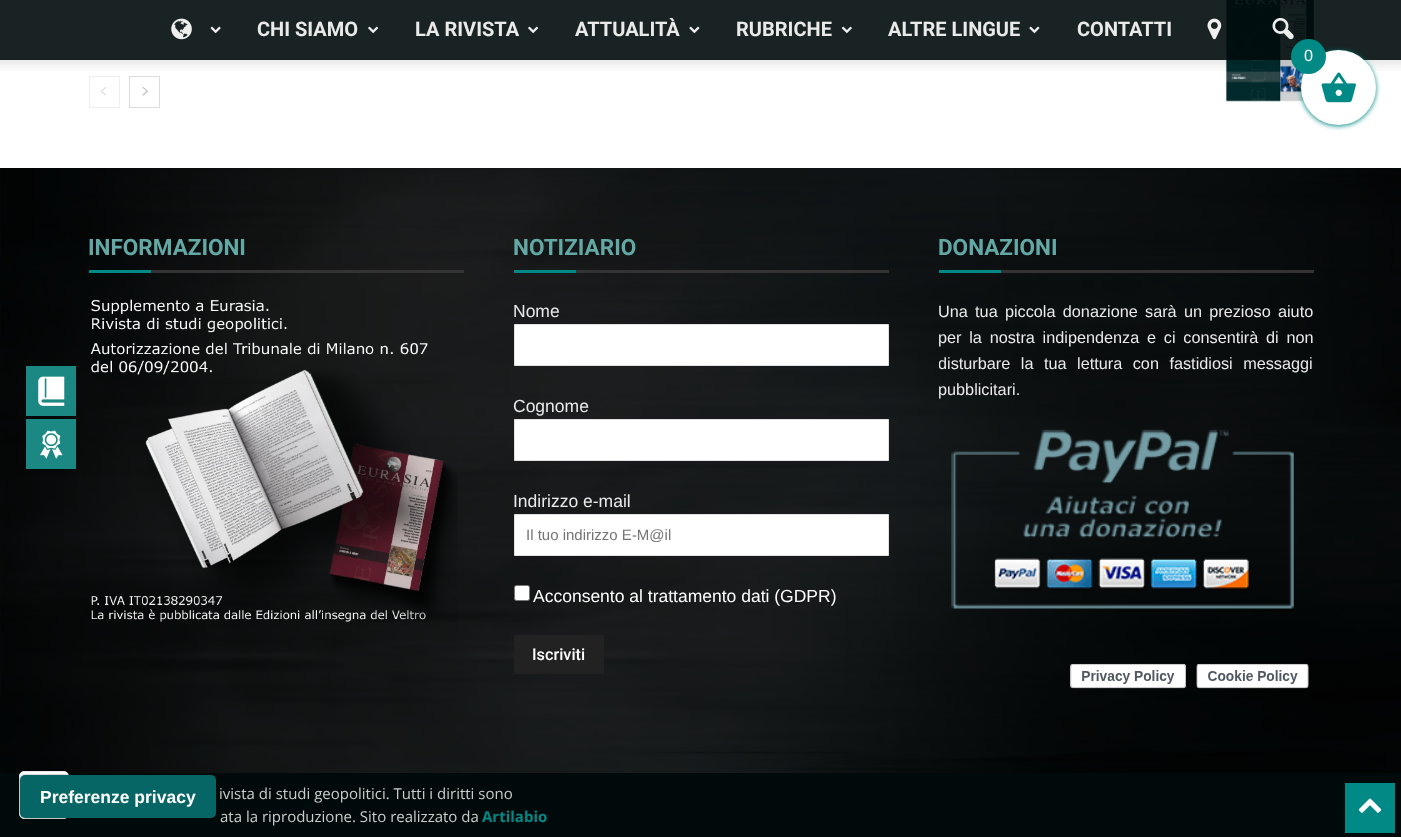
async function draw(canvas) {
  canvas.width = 1401
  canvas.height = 837
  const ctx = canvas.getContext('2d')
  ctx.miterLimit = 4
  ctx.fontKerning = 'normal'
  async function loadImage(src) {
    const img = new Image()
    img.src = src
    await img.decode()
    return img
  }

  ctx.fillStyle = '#202e33'
  ctx.fillRect(0, 0, 1401, 837)
  ctx.fillStyle = '#fff'
  ctx.fillRect(0, 0, 1401, 168)
  ctx.strokeStyle = '#eee'
  ctx.strokeRect(89.5, 76.5, 30, 31)
  ctx.drawImage(await loadImage('image0.png'), 100, 87, 7, 9)
  ctx.strokeStyle = '#dcdcdc'
  ctx.strokeRect(129.5, 76.5, 30, 31)
  ctx.drawImage(await loadImage('image1.png'), 142, 87, 6, 9)
  ctx.drawImage(await loadImage('image2.png'), 1225, 0, 89, 102)
  ctx.fillStyle = '#000b0ce6'
  ctx.fillRect(0, 0, 1401, 60)
  ctx.drawImage(await loadImage('image3.png'), 171, 18, 21, 22)
  ctx.drawImage(await loadImage('image4.png'), 210, 26, 11, 8)
  ctx.font = 'bold 20px Roboto'
  ctx.fillStyle = '#eaeaea'
  ctx.fillText('CHI SIAMO', 257, 36)
  ctx.drawImage(await loadImage('image5.png'), 368, 26, 11, 8)
  ctx.fillText('LA RIVISTA', 415, 36)
  ctx.drawImage(await loadImage('image5.png'), 528, 26, 11, 8)
  ctx.fillText('ATTUALITÀ', 575, 36)
  ctx.drawImage(await loadImage('image6.png'), 689, 26, 11, 8)
  ctx.fillText('RUBRICHE', 736, 36)
  ctx.drawImage(await loadImage('image7.png'), 841, 26, 11, 8)
  ctx.fillText('ALTRE LINGUE', 888, 36)
  ctx.drawImage(await loadImage('image6.png'), 1029, 26, 11, 8)
  ctx.fillText('CONTATTI', 1077, 36)
  ctx.drawImage(await loadImage('image8.png'), 1207, 18, 15, 22)
  ctx.drawImage(await loadImage('image9.png'), 1272, 17, 22, 23)
  ctx.drawImage(await loadImage('image10.png'), 0, 60, 1401, 11)
  ctx.drawImage(await loadImage('image16.png'), 0, 168, 1401, 605)
  ctx.fillStyle = '#020202d6'
  ctx.fillRect(0, 168, 1401, 605)
  ctx.font = 'bold 22.5px Roboto'
  ctx.fillStyle = '#63a8a4'
  ctx.fillText('INFORMAZIONI', 88, 255)
  ctx.fillStyle = '#008985'
  ctx.fillRect(89, 270, 62, 3)
  ctx.fillStyle = '#333'
  ctx.fillRect(151, 270, 313, 3)
  ctx.drawImage(await loadImage('image11.png'), 90, 299, 368, 323)
  ctx.fillStyle = '#63a8a4'
  ctx.fillText('NOTIZIARIO', 513, 255)
  ctx.fillStyle = '#008985'
  ctx.fillRect(514, 270, 62, 3)
  ctx.fillStyle = '#333'
  ctx.fillRect(576, 270, 313, 3)
  ctx.font = '17.5px Liberation Sans'
  ctx.fillStyle = '#eaeaea'
  ctx.fillText('Nome', 513, 317)
  ctx.fillStyle = '#fff'
  ctx.beginPath()
  ctx.rect(514.5, 324.5, 374, 41)
  ctx.fill()
  ctx.strokeStyle = '#e1e1e1'
  ctx.stroke()
  ctx.fillStyle = '#eaeaea'
  ctx.fillText('Cognome', 513, 412)
  ctx.fillStyle = '#fff'
  ctx.beginPath()
  ctx.rect(514.5, 419.5, 374, 41)
  ctx.fill()
  ctx.stroke()
  ctx.fillStyle = '#eaeaea'
  ctx.fillText('Indirizzo e-mail', 513, 507)
  ctx.fillStyle = '#fff'
  ctx.beginPath()
  ctx.rect(514.5, 514.5, 374, 41)
  ctx.fill()
  ctx.stroke()
  ctx.font = '15px Liberation Sans'
  ctx.fillStyle = '#757575'
  ctx.fillText('Il tuo indirizzo E-M@il', 526, 540)
  ctx.fillStyle = '#fff'
  ctx.beginPath()
  ctx.roundRect(514.5, 585.5, 15, 15, 2)
  ctx.fill()
  ctx.strokeStyle = '#767676'
  ctx.stroke()
  ctx.font = '17.5px Liberation Sans'
  ctx.fillText('Acconsento al trattamento dati (GDPR)', 533, 602)
  ctx.fillStyle = '#222'
  ctx.fillRect(514, 635, 90, 39)
  ctx.font = '500 16.25px Roboto'
  ctx.fillStyle = '#fff'
  ctx.fillText('Iscriviti', 532, 660)
  ctx.font = 'bold 22.5px Roboto'
  ctx.fillStyle = '#63a8a4'
  ctx.fillText('DONAZIONI', 938, 255)
  ctx.fillStyle = '#008985'
  ctx.fillRect(939, 270, 62, 3)
  ctx.fillStyle = '#333'
  ctx.fillRect(1001, 270, 313, 3)
  ctx.wordSpacing = '2.75px'
  ctx.font = '16.25px Liberation Sans'
  ctx.fillStyle = '#eaeaea'
  ctx.fillText('Una tua piccola donazione sarà un prezioso aiuto', 938, 317)
  ctx.wordSpacing = '3.25px'
  ctx.fillText('per la nostra indipendenza e ci consentirà di non', 938, 343)
  ctx.save()
  ctx.beginPath()
  ctx.rect(939, 236, 375, 380)
  ctx.clip()
  ctx.wordSpacing = '6px'
  ctx.fillText('disturbare la tua lettura con fastidiosi messaggi', 938, 369)
  ctx.restore()
  ctx.wordSpacing = '0px'
  ctx.fillText('pubblicitari.', 938, 395)
  ctx.drawImage(await loadImage('image12.png'), 951, 429, 343, 180)
  ctx.drawImage(await loadImage('image13.png'), 1070, 663, 116, 26)
  ctx.drawImage(await loadImage('image14.png'), 1196, 663, 113, 26)
  ctx.fillStyle = '#000a0a'
  ctx.fillRect(0, 773, 1401, 64)
  ctx.font = '15px Open Sans'
  ctx.fillStyle = '#ccc'
  ctx.fillText('ivista di studi geopolitici. Tutti i diritti sono', 219, 799)
  ctx.fillText('ata la riproduzione. Sito realizzato da', 220, 822)
  ctx.font = 'bold 15px Open Sans'
  ctx.fillStyle = '#008985'
  ctx.fillText('Artilabio', 482, 822)
  ctx.filter = 'blur(2.5px)'
  ctx.beginPath()
  ctx.roundRect(1301, 51, 75, 75, 37.5)
  ctx.fill()
  ctx.filter = 'none'
  ctx.fillStyle = '#fff'
  ctx.beginPath()
  ctx.arc(1338.5, 87.5, 37.5, 0, 2 * Math.PI)
  ctx.fill()
  ctx.drawImage(await loadImage('image15.png'), 1321, 72, 35, 31)
  ctx.fillStyle = '#008985'
  ctx.beginPath()
  ctx.arc(1308.5, 56.5, 17.5, 0, 2 * Math.PI)
  ctx.fill()
  ctx.font = '16.25px Liberation Sans'
  ctx.fillStyle = '#fff'
  ctx.fillText('0', 1304, 61)
  ctx.fillStyle = '#1b8884'
  ctx.fillRect(26, 366, 50, 50)
  ctx.drawImage(await loadImage('image17.png'), 38, 376, 27, 30)
  ctx.fillRect(26, 419, 50, 50)
  ctx.drawImage(await loadImage('image18.png'), 40, 430, 23, 29)
  ctx.fillStyle = '#fff'
  ctx.beginPath()
  ctx.roundRect(19.5, 771.5, 49, 47, 4.5)
  ctx.fill()
  ctx.strokeStyle = '#e9e9e9'
  ctx.stroke()
  ctx.fillStyle = '#008985'
  ctx.fillRect(1345, 783, 50, 50)
  ctx.drawImage(await loadImage('image19.png'), 1358, 798, 24, 15)
  ctx.beginPath()
  ctx.roundRect(19.5, 774.5, 198, 44, 5.5)
  ctx.strokeStyle = '#00000026'
  ctx.stroke()
  ctx.fillStyle = '#066666'
  ctx.beginPath()
  ctx.roundRect(20, 775, 196, 43, 5)
  ctx.fill()
  ctx.font = 'bold 17.5px Liberation Sans'
  ctx.fillStyle = '#fff'
  ctx.fillText('Preferenze privacy', 40, 803)
}

draw(document.querySelector('canvas'))
